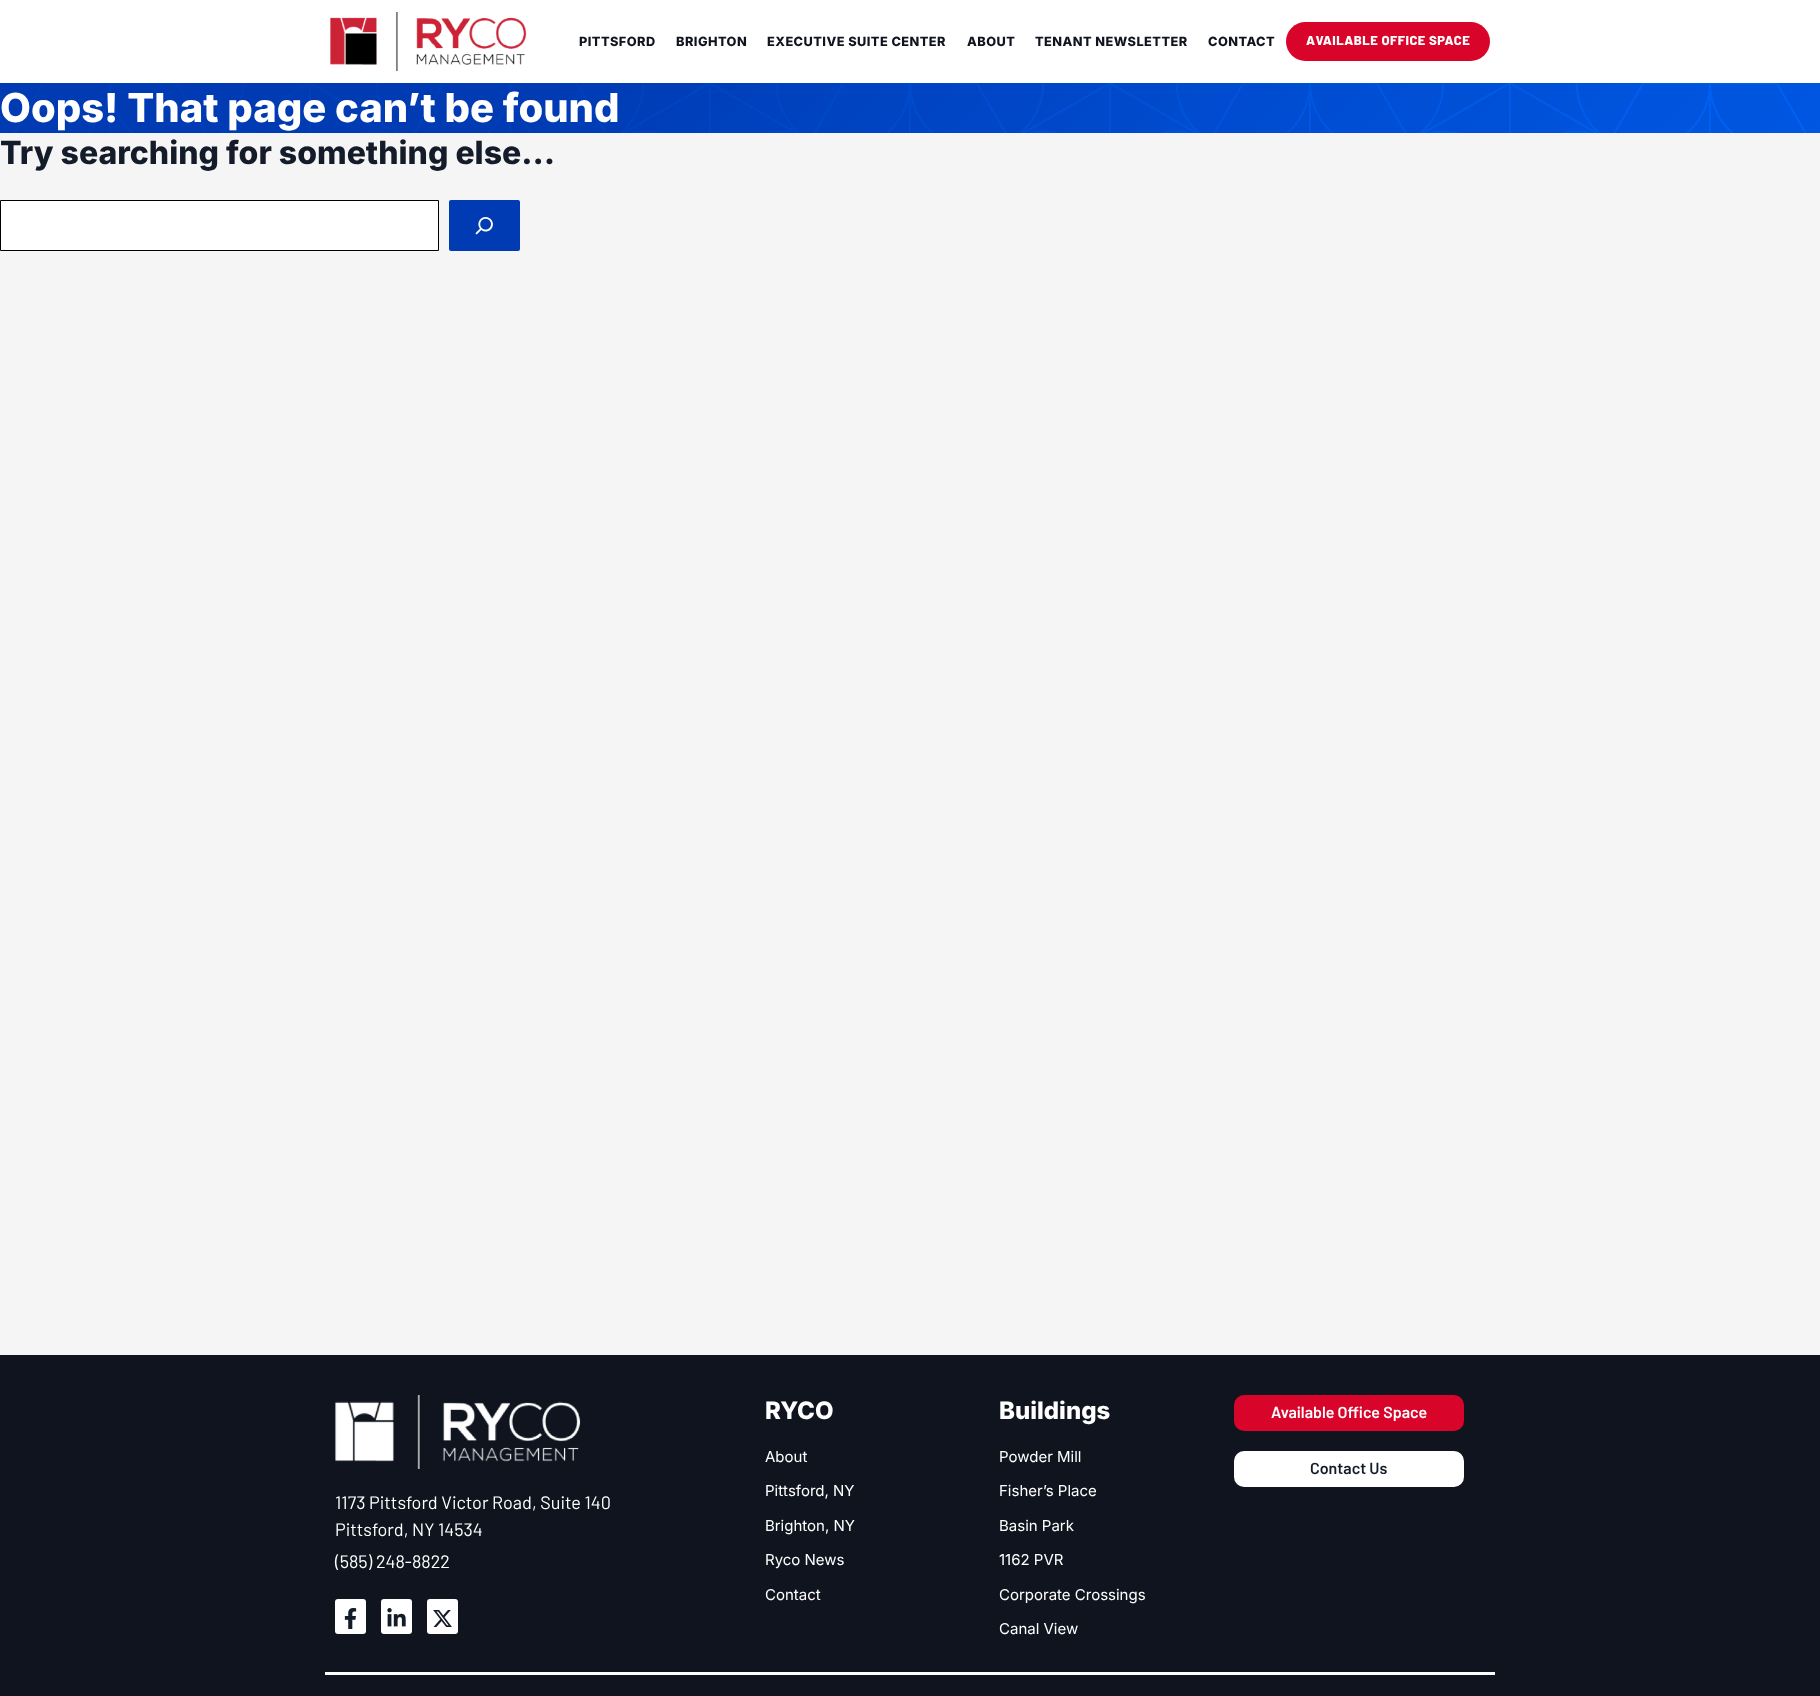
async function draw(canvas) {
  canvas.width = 1820
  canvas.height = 1696
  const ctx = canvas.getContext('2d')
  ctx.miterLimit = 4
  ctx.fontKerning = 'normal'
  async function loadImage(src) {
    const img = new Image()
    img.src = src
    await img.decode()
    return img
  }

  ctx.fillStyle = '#f5f5f5'
  ctx.fillRect(0, 0, 1820, 1696)
  ctx.fillStyle = '#fff'
  ctx.fillRect(0, 0, 1820, 83)
  ctx.drawImage(await loadImage('image0.png'), 330, 12, 197, 59)
  ctx.letterSpacing = '0.45px'
  ctx.font = '800 12.75px Inter'
  ctx.fillStyle = '#0f141f'
  ctx.fillText('PITTSFORD', 579, 46)
  ctx.fillText('BRIGHTON', 676, 46)
  ctx.fillText('EXECUTIVE SUITE CENTER', 767, 46)
  ctx.fillText('ABOUT', 967, 46)
  ctx.fillText('TENANT NEWSLETTER', 1035, 46)
  ctx.fillText('CONTACT', 1208, 46)
  ctx.fillStyle = '#d90429'
  ctx.beginPath()
  ctx.roundRect(1286, 22, 204, 39, 19.5)
  ctx.fill()
  ctx.letterSpacing = '0.5px'
  ctx.font = '800 13px Barlow'
  ctx.fillStyle = '#fff'
  ctx.fillText('AVAILABLE OFFICE SPACE', 1306, 45)
  ctx.drawImage(await loadImage('image1.png'), 0, 83, 1820, 50)
  ctx.letterSpacing = '0px'
  ctx.font = '800 40px Inter'
  ctx.fillText('Oops! That page can’t be found', 0, 122)
  ctx.font = '800 32px Inter'
  ctx.fillStyle = '#141b29'
  ctx.fillText('Try searching for something else…', 0, 164)
  ctx.fillStyle = '#fff'
  ctx.beginPath()
  ctx.rect(0.5, 200.5, 438, 50)
  ctx.fill()
  ctx.strokeStyle = '#000'
  ctx.stroke()
  ctx.fillStyle = '#003bb3'
  ctx.beginPath()
  ctx.roundRect(449, 200, 71, 51, 2)
  ctx.fill()
  ctx.drawImage(await loadImage('image2.png'), 475, 217, 18, 18)
  ctx.fillStyle = '#0f141f'
  ctx.fillRect(0, 1355, 1820, 341)
  ctx.font = '800 24px Inter'
  ctx.fillStyle = '#fff'
  ctx.fillText('RYCO', 765, 1419)
  ctx.font = '15px Inter'
  ctx.fillText('About', 765, 1462)
  ctx.fillText('Pittsford, NY', 765, 1496)
  ctx.fillText('Brighton, NY', 765, 1531)
  ctx.fillText('Ryco News', 765, 1565)
  ctx.fillText('Contact', 765, 1600)
  ctx.font = '800 24px Inter'
  ctx.fillText('Buildings', 999, 1419)
  ctx.font = '15px Inter'
  ctx.fillText('Powder Mill', 999, 1462)
  ctx.fillText('Fisher’s Place', 999, 1496)
  ctx.fillText('Basin Park', 999, 1531)
  ctx.fillText('1162 PVR', 999, 1565)
  ctx.fillText('Corporate Crossings', 999, 1600)
  ctx.fillText('Canal View', 999, 1634)
  ctx.fillStyle = '#d90429'
  ctx.beginPath()
  ctx.roundRect(1234, 1395, 230, 36, 10)
  ctx.fill()
  ctx.font = '600 16px Barlow'
  ctx.fillStyle = '#fff'
  ctx.fillText('Available Office Space', 1271, 1418)
  ctx.beginPath()
  ctx.roundRect(1234, 1451, 230, 36, 10)
  ctx.fill()
  ctx.fillStyle = '#141b29'
  ctx.fillText('Contact Us', 1310, 1474)
  ctx.drawImage(await loadImage('image3.png'), 335, 1395, 246, 74)
  ctx.font = '18px Barlow'
  ctx.fillStyle = '#fff'
  ctx.fillText('1173 Pittsford Victor Road, Suite 140', 335, 1509)
  ctx.fillText('Pittsford, NY 14534', 335, 1536)
  ctx.fillText('(585) 248-8822', 335, 1568)
  ctx.beginPath()
  ctx.roundRect(335, 1599, 31, 35, 3)
  ctx.fill()
  ctx.drawImage(await loadImage('image4.png'), 344, 1608, 13, 21)
  ctx.beginPath()
  ctx.roundRect(381, 1599, 31, 35, 3)
  ctx.fill()
  ctx.drawImage(await loadImage('image5.png'), 387, 1608, 19, 19)
  ctx.beginPath()
  ctx.roundRect(427, 1599, 31, 35, 3)
  ctx.fill()
  ctx.drawImage(await loadImage('image6.png'), 433, 1610, 19, 17)
  ctx.fillRect(325, 1672, 1170, 3)
}

draw(document.querySelector('canvas'))
